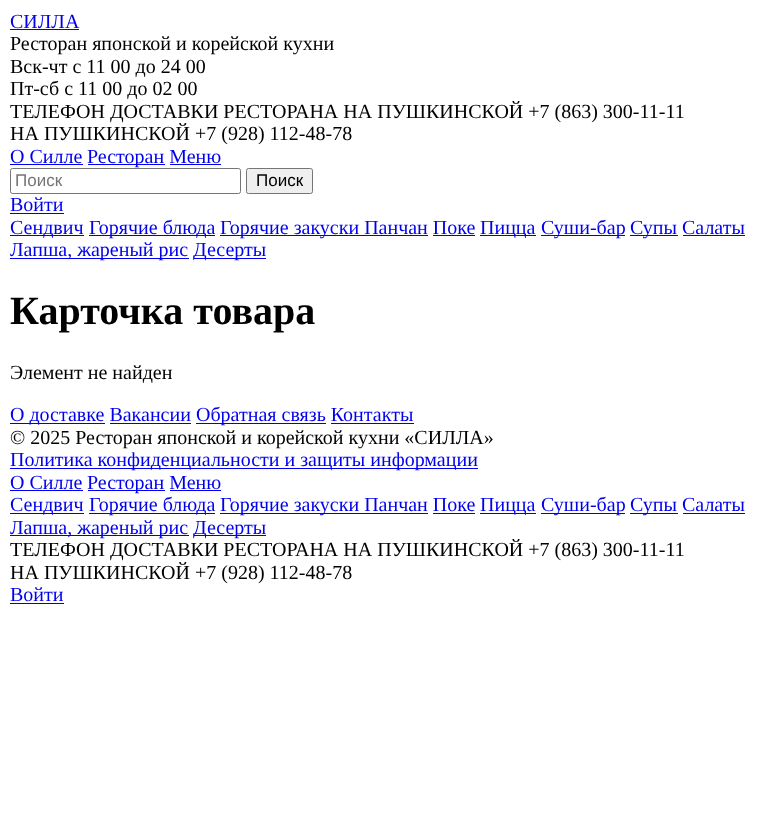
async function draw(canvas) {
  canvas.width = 784
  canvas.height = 814
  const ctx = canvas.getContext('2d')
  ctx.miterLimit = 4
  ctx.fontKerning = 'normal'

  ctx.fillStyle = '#fff'
  ctx.fillRect(0, 0, 784, 814)
  ctx.font = '20px Liberation Serif'
  ctx.fillStyle = '#00e'
  ctx.fillText('СИЛЛА', 10, 28)
  ctx.fillRect(10, 29, 69, 1)
  ctx.fillStyle = '#000'
  ctx.fillText('Ресторан японской и корейской кухни', 10, 50)
  ctx.fillText('Вск-чт с 11 00 до 24 00', 10, 73)
  ctx.fillText('Пт-сб с 11 00 до 02 00', 10, 95)
  ctx.fillText('ТЕЛЕФОН ДОСТАВКИ РЕСТОРАНА НА ПУШКИНСКОЙ +7 (863) 300-11-11', 10, 118)
  ctx.fillText('НА ПУШКИНСКОЙ +7 (928) 112-48-78', 10, 140)
  ctx.fillStyle = '#00e'
  ctx.fillText('О Силле', 10, 163)
  ctx.fillRect(10, 164, 73, 1)
  ctx.fillRect(88, 164, 77, 1)
  ctx.fillText('Ресторан Меню', 87, 163)
  ctx.fillRect(170, 164, 51, 1)
  ctx.beginPath()
  ctx.roundRect(10.5, 168.5, 230, 25, 2)
  ctx.strokeStyle = '#767676'
  ctx.stroke()
  ctx.font = '17px Liberation Sans'
  ctx.fillStyle = '#757575'
  ctx.fillText('Поиск', 15, 186)
  ctx.fillStyle = '#efefef'
  ctx.beginPath()
  ctx.roundRect(246.5, 168.5, 66, 25, 2)
  ctx.fill()
  ctx.stroke()
  ctx.fillStyle = '#000'
  ctx.fillText('Поиск', 256, 186)
  ctx.font = '20px Liberation Serif'
  ctx.fillStyle = '#00e'
  ctx.fillText('Войти', 10, 211)
  ctx.fillRect(10, 213, 54, 1)
  ctx.fillRect(10, 235, 74, 1)
  ctx.fillText('Сендвич', 10, 234)
  ctx.fillRect(89, 235, 126, 1)
  ctx.fillText('Горячие блюда', 89, 234)
  ctx.fillRect(220, 235, 208, 1)
  ctx.fillText('Горячие закуски Панчан Поке', 220, 234)
  ctx.fillRect(480, 235, 56, 1)
  ctx.fillText('Пицца', 480, 234)
  ctx.fillRect(541, 235, 84, 1)
  ctx.fillText('Суши-бар', 541, 234)
  ctx.fillRect(630, 235, 48, 1)
  ctx.fillText('Супы Салаты', 630, 234)
  ctx.fillRect(433, 235, 42, 1)
  ctx.fillRect(683, 235, 62, 1)
  ctx.fillRect(10, 258, 179, 1)
  ctx.fillText('Лапша, жареный рис', 10, 256)
  ctx.fillRect(194, 258, 72, 1)
  ctx.fillText('Десерты', 193, 256)
  ctx.font = 'bold 40px Liberation Serif'
  ctx.fillStyle = '#000'
  ctx.fillText('Карточка товара', 10, 324)
  ctx.font = '20px Liberation Serif'
  ctx.fillText('Элемент не найден', 10, 379)
  ctx.fillStyle = '#00e'
  ctx.fillRect(10, 423, 95, 1)
  ctx.fillText('О доставке Вакансии', 10, 421)
  ctx.fillRect(196, 423, 130, 1)
  ctx.fillText('Обратная связь Контакты', 196, 421)
  ctx.fillRect(110, 423, 81, 1)
  ctx.fillRect(331, 423, 83, 1)
  ctx.fillStyle = '#000'
  ctx.fillText('© 2025 Ресторан японской и корейской кухни «СИЛЛА»', 10, 444)
  ctx.fillStyle = '#00e'
  ctx.fillRect(10, 468, 468, 1)
  ctx.fillText('Политика конфиденциальности и защиты информации', 10, 466)
  ctx.fillText('О Силле', 10, 489)
  ctx.fillRect(10, 490, 73, 1)
  ctx.fillRect(88, 490, 77, 1)
  ctx.fillText('Ресторан Меню', 87, 489)
  ctx.fillRect(170, 490, 51, 1)
  ctx.fillRect(10, 513, 74, 1)
  ctx.fillText('Сендвич', 10, 511)
  ctx.fillRect(89, 513, 126, 1)
  ctx.fillText('Горячие блюда', 89, 511)
  ctx.fillRect(220, 513, 208, 1)
  ctx.fillText('Горячие закуски Панчан Поке', 220, 511)
  ctx.fillRect(480, 513, 56, 1)
  ctx.fillText('Пицца', 480, 511)
  ctx.fillRect(541, 513, 84, 1)
  ctx.fillText('Суши-бар', 541, 511)
  ctx.fillRect(630, 513, 48, 1)
  ctx.fillText('Супы Салаты', 630, 511)
  ctx.fillRect(433, 513, 42, 1)
  ctx.fillRect(683, 513, 62, 1)
  ctx.fillRect(10, 535, 179, 1)
  ctx.fillText('Лапша, жареный рис', 10, 534)
  ctx.fillRect(194, 535, 72, 1)
  ctx.fillText('Десерты', 193, 534)
  ctx.fillStyle = '#000'
  ctx.fillText('ТЕЛЕФОН ДОСТАВКИ РЕСТОРАНА НА ПУШКИНСКОЙ +7 (863) 300-11-11', 10, 556)
  ctx.fillText('НА ПУШКИНСКОЙ +7 (928) 112-48-78', 10, 579)
  ctx.fillStyle = '#00e'
  ctx.fillText('Войти', 10, 601)
  ctx.fillRect(10, 603, 54, 1)
}

draw(document.querySelector('canvas'))
